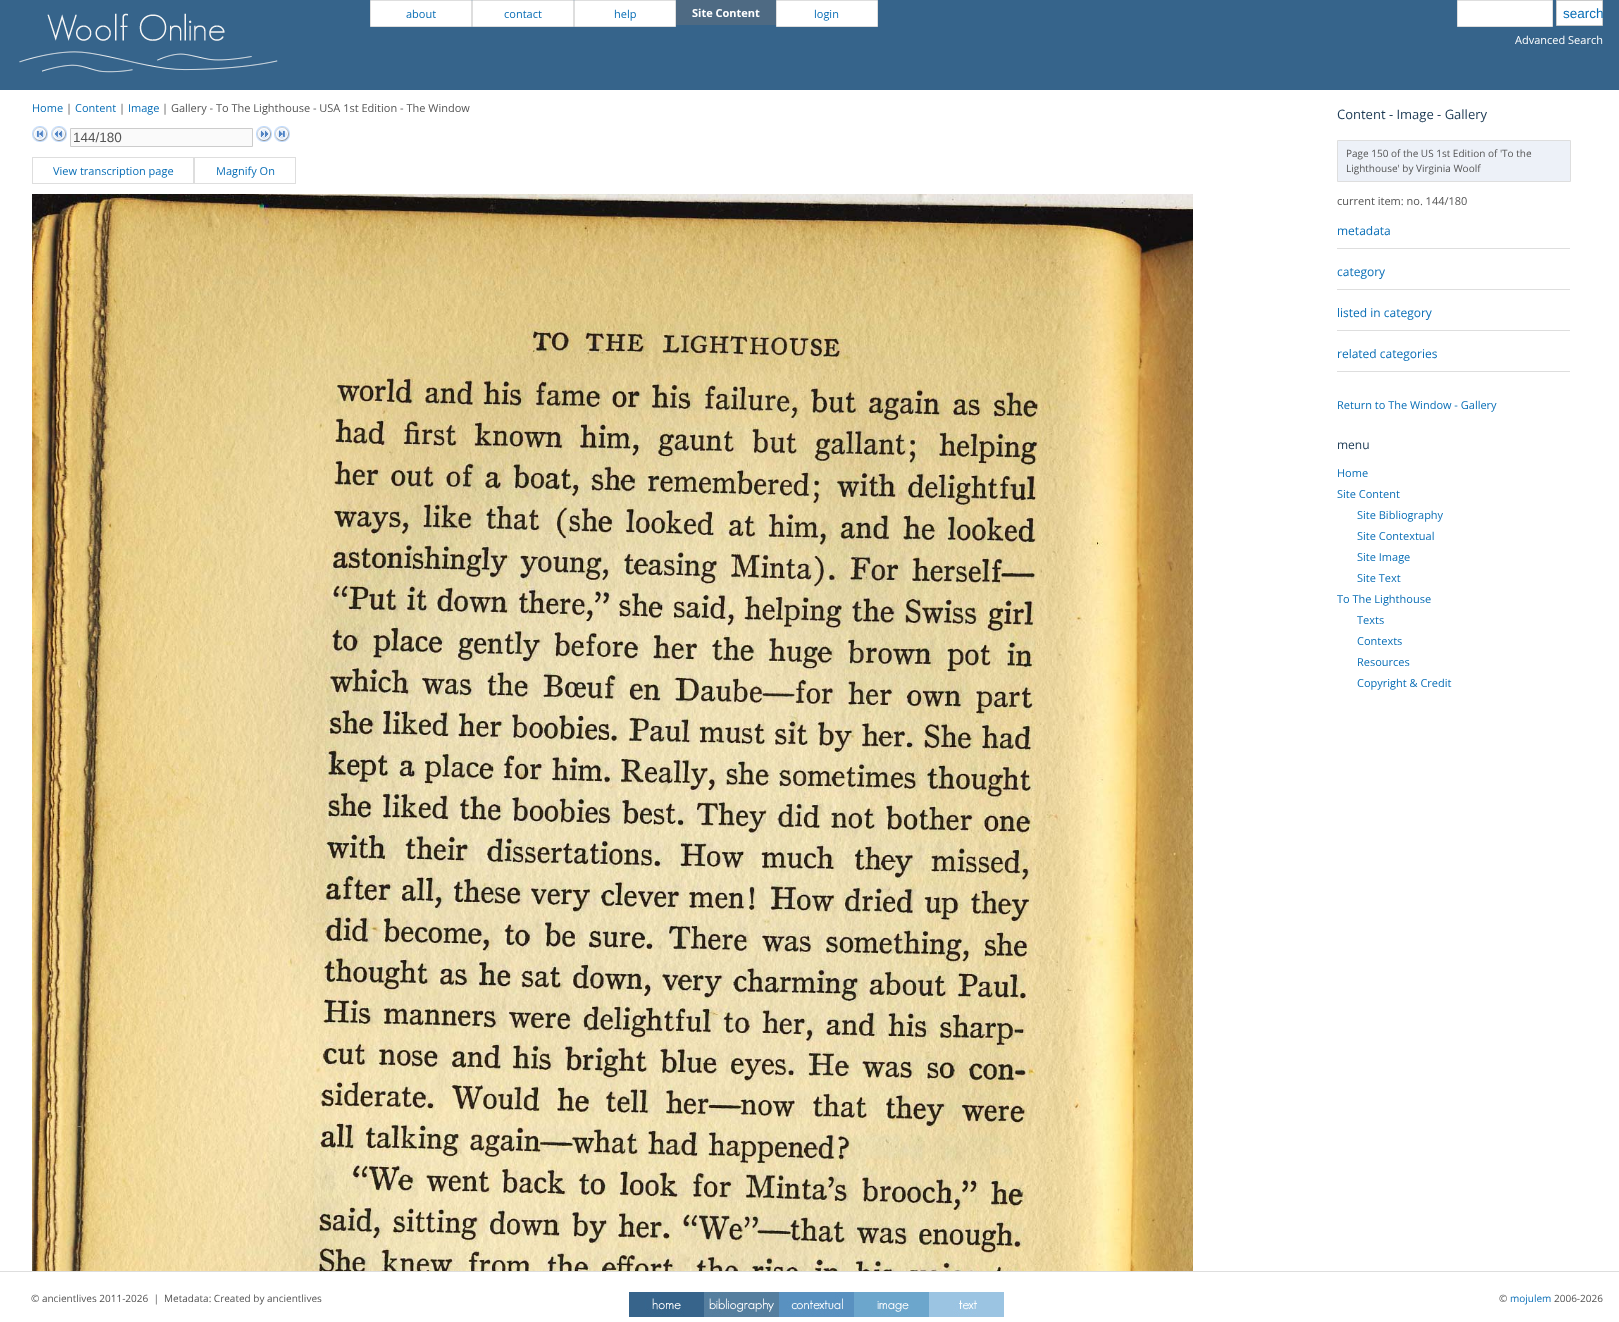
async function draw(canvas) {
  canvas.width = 1619
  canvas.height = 1322
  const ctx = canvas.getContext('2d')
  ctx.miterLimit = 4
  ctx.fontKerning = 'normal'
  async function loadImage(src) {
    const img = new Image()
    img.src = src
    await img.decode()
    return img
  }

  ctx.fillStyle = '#fff'
  ctx.fillRect(0, 0, 1619, 1322)
  ctx.fillStyle = '#36648b'
  ctx.fillRect(0, 0, 1619, 90)
  ctx.drawImage(await loadImage('image0.png'), 19, 13, 259, 60)
  ctx.fillStyle = '#fff'
  ctx.beginPath()
  ctx.rect(370.5, 0.5, 101, 26)
  ctx.fill()
  ctx.strokeStyle = '#dedede'
  ctx.stroke()
  ctx.font = '11px Open Sans'
  ctx.fillStyle = '#096eb6'
  ctx.fillText('about', 406, 18)
  ctx.fillStyle = '#fff'
  ctx.beginPath()
  ctx.rect(472.5, 0.5, 101, 26)
  ctx.fill()
  ctx.stroke()
  ctx.fillStyle = '#096eb6'
  ctx.fillText('contact', 504, 18)
  ctx.fillStyle = '#fff'
  ctx.beginPath()
  ctx.rect(574.5, 0.5, 101, 26)
  ctx.fill()
  ctx.stroke()
  ctx.fillStyle = '#096eb6'
  ctx.fillText('help', 614, 18)
  ctx.fillStyle = '#4e6a83'
  ctx.fillRect(676, 0, 100, 25)
  ctx.font = 'bold 11px Open Sans'
  ctx.fillStyle = '#fff'
  ctx.fillText('Site Content', 692, 17)
  ctx.beginPath()
  ctx.rect(776.5, 0.5, 101, 26)
  ctx.fill()
  ctx.stroke()
  ctx.font = '11px Open Sans'
  ctx.fillStyle = '#096eb6'
  ctx.fillText('login', 814, 18)
  ctx.fillStyle = '#fff'
  ctx.beginPath()
  ctx.rect(1457.5, 0.5, 95, 26)
  ctx.fill()
  ctx.stroke()
  ctx.beginPath()
  ctx.rect(1556.5, 0.5, 46, 25)
  ctx.fill()
  ctx.strokeStyle = '#ccc'
  ctx.stroke()
  ctx.font = '13.5px Liberation Sans'
  ctx.fillStyle = '#096eb6'
  ctx.fillText('search', 1563, 18)
  ctx.font = '11px Open Sans'
  ctx.fillStyle = '#fff'
  ctx.fillText('Advanced Search', 1515, 44)
  ctx.fillStyle = '#096eb6'
  ctx.fillText('Home', 32, 112)
  ctx.fillStyle = '#555'
  ctx.fillText('|', 66, 112)
  ctx.fillStyle = '#096eb6'
  ctx.fillText('Content', 75, 112)
  ctx.fillStyle = '#555'
  ctx.fillText('|', 119, 112)
  ctx.fillStyle = '#096eb6'
  ctx.fillText('Image', 128, 112)
  ctx.fillStyle = '#555'
  ctx.fillText('| Gallery - To The Lighthouse - USA 1st Edition - The Window', 162, 112)
  ctx.drawImage(await loadImage('image1.png'), 32, 126, 16, 16)
  ctx.drawImage(await loadImage('image2.png'), 51, 126, 16, 16)
  ctx.fillStyle = '#fafafa'
  ctx.beginPath()
  ctx.rect(70.5, 128.5, 182, 18)
  ctx.fill()
  ctx.stroke()
  ctx.font = '13.5px Liberation Sans'
  ctx.fillStyle = '#555'
  ctx.fillText('144/180', 73, 142)
  ctx.drawImage(await loadImage('image3.png'), 256, 126, 16, 16)
  ctx.drawImage(await loadImage('image4.png'), 274, 126, 16, 16)
  ctx.strokeStyle = '#dedede'
  ctx.strokeRect(32.5, 157.5, 161, 26)
  ctx.font = '11px Open Sans'
  ctx.fillStyle = '#096eb6'
  ctx.fillText('View transcription page', 53, 175)
  ctx.strokeRect(194.5, 157.5, 101, 26)
  ctx.fillText('Magnify On', 216, 175)
  ctx.drawImage(await loadImage('image5.png'), 32, 194, 1161, 1077)
  ctx.font = '13px Open Sans'
  ctx.fillStyle = '#1a3852'
  ctx.fillText('Content - Image - Gallery', 1337, 119)
  ctx.fillStyle = '#edf1f8'
  ctx.beginPath()
  ctx.rect(1337.5, 140.5, 233, 41)
  ctx.fill()
  ctx.stroke()
  ctx.font = '10px Open Sans'
  ctx.fillStyle = '#555'
  ctx.fillText('Page 150 of the US 1st Edition of \'To the', 1346, 157)
  ctx.fillText('Lighthouse\' by Virginia Woolf', 1346, 172)
  ctx.fillStyle = '#dedede'
  ctx.fillRect(1337, 289, 233, 1)
  ctx.font = '11px Open Sans'
  ctx.fillStyle = '#555'
  ctx.fillText('current item: no. 144/180', 1337, 205)
  ctx.fillStyle = '#dedede'
  ctx.fillRect(1337, 248, 233, 1)
  ctx.font = '12px Open Sans'
  ctx.fillStyle = '#096eb6'
  ctx.fillText('metadata', 1337, 235)
  ctx.fillText('category', 1337, 276)
  ctx.fillStyle = '#dedede'
  ctx.fillRect(1337, 330, 233, 1)
  ctx.fillStyle = '#096eb6'
  ctx.fillText('listed in category', 1337, 317)
  ctx.fillStyle = '#dedede'
  ctx.fillRect(1337, 371, 233, 1)
  ctx.fillStyle = '#096eb6'
  ctx.fillText('related categories', 1337, 358)
  ctx.font = '11px Open Sans'
  ctx.fillText('Return to The Window - Gallery', 1337, 409)
  ctx.font = '12px Open Sans'
  ctx.fillStyle = '#1a3852'
  ctx.fillText('menu', 1337, 449)
  ctx.font = '11px Open Sans'
  ctx.fillStyle = '#096eb6'
  ctx.fillText('Home', 1337, 477)
  ctx.fillText('Site Content', 1337, 498)
  ctx.fillText('Site Bibliography', 1357, 519)
  ctx.fillText('Site Contextual', 1357, 540)
  ctx.fillText('Site Image', 1357, 561)
  ctx.fillText('Site Text', 1357, 582)
  ctx.fillText('To The Lighthouse', 1337, 603)
  ctx.fillText('Texts', 1357, 624)
  ctx.fillText('Contexts', 1357, 645)
  ctx.fillText('Resources', 1357, 666)
  ctx.fillText('Copyright & Credit', 1357, 687)
  ctx.fillStyle = '#dedede'
  ctx.fillRect(0, 1271, 1619, 1)
  ctx.font = '10px Open Sans'
  ctx.fillStyle = '#555'
  ctx.fillText('© ancientlives 2011-2026  |  Metadata: Created by ancientlives', 31, 1302)
  ctx.drawImage(await loadImage('image6.png'), 629, 1292, 75, 25)
  ctx.drawImage(await loadImage('image7.png'), 704, 1292, 75, 25)
  ctx.drawImage(await loadImage('image8.png'), 779, 1292, 75, 25)
  ctx.drawImage(await loadImage('image9.png'), 854, 1292, 75, 25)
  ctx.drawImage(await loadImage('image10.png'), 929, 1292, 75, 25)
  ctx.fillText('©', 1499, 1302)
  ctx.fillStyle = '#096eb6'
  ctx.fillText('mojulem', 1510, 1302)
  ctx.fillStyle = '#555'
  ctx.fillText('2006-2026', 1554, 1302)
}

draw(document.querySelector('canvas'))
